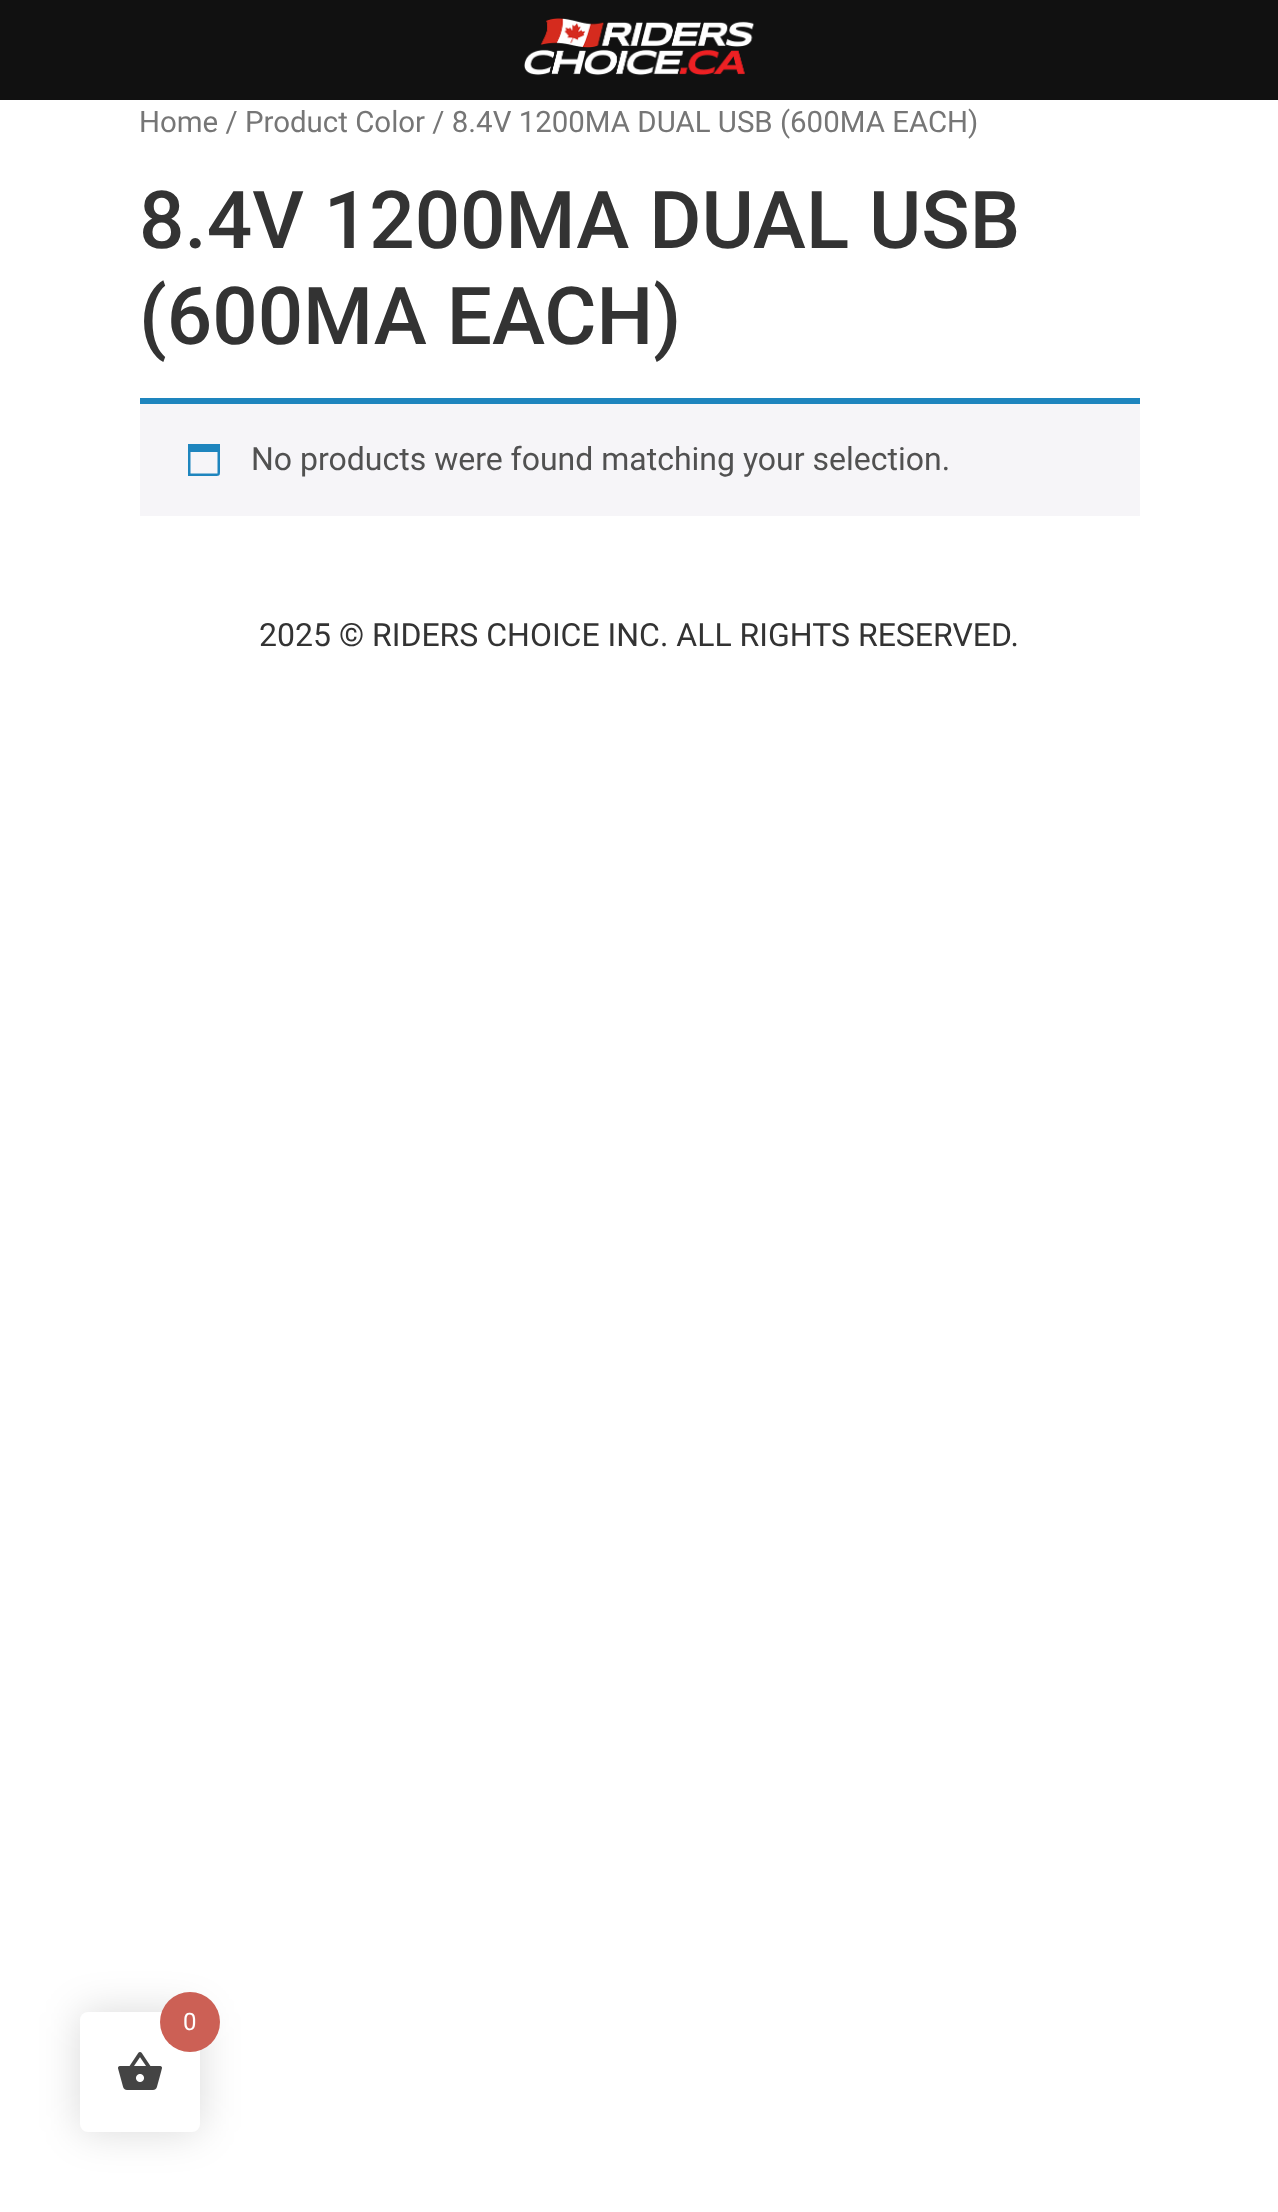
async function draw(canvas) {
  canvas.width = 1278
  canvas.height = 2212
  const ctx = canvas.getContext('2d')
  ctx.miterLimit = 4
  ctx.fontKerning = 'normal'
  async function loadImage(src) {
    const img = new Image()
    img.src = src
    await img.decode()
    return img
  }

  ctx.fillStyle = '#fff'
  ctx.fillRect(0, 0, 1278, 2212)
  ctx.fillStyle = '#111'
  ctx.fillRect(0, 0, 1278, 100)
  ctx.drawImage(await loadImage('image0.png'), 524, 18, 231, 58)
  ctx.font = '29.45px Roboto'
  ctx.fillStyle = '#767676'
  ctx.fillText('Home / Product Color / 8.4V 1200MA DUAL USB (600MA EACH)', 139, 132)
  ctx.font = '500 80px Roboto'
  ctx.fillStyle = '#333'
  ctx.fillText('8.4V 1200MA DUAL USB', 139, 248)
  ctx.fillText('(600MA EACH)', 139, 344)
  ctx.fillStyle = '#f6f5f8'
  ctx.fillRect(140, 404, 1000, 112)
  ctx.fillStyle = '#1e85be'
  ctx.fillRect(140, 398, 1000, 6)
  ctx.beginPath()
  ctx.moveTo(217.5, 452)
  ctx.lineTo(190.5, 452)
  ctx.lineTo(190.5, 473.5)
  ctx.lineTo(217.5, 473.5)
  ctx.closePath()
  ctx.moveTo(220, 444)
  ctx.lineTo(220, 468.5)
  ctx.bezierCurveTo(220, 476.5, 220.5, 476, 212.5, 476)
  ctx.lineTo(188, 476)
  ctx.lineTo(188, 444)
  ctx.closePath()
  ctx.fill()
  ctx.font = '32px Roboto'
  ctx.fillStyle = '#515151'
  ctx.fillText('No products were found matching your selection.', 251, 470)
  ctx.fillStyle = '#333'
  ctx.fillText('2025 © RIDERS CHOICE INC. ALL RIGHTS RESERVED.', 259, 646)
  ctx.fillStyle = '#00000026'
  ctx.filter = 'blur(20px)'
  ctx.beginPath()
  ctx.roundRect(80, 2012, 120, 120, 8)
  ctx.fill()
  ctx.filter = 'none'
  ctx.fillStyle = '#fff'
  ctx.beginPath()
  ctx.roundRect(80, 2012, 120, 120, 8)
  ctx.fill()
  ctx.fillStyle = '#cc6055'
  ctx.beginPath()
  ctx.arc(190, 2022, 30, 0, 2 * Math.PI)
  ctx.fill()
  ctx.font = '24px Roboto'
  ctx.fillStyle = '#fff'
  ctx.fillText('0', 183, 2030)
  ctx.drawImage(await loadImage('image1.png'), 118, 2052, 44, 38)
}

draw(document.querySelector('canvas'))
